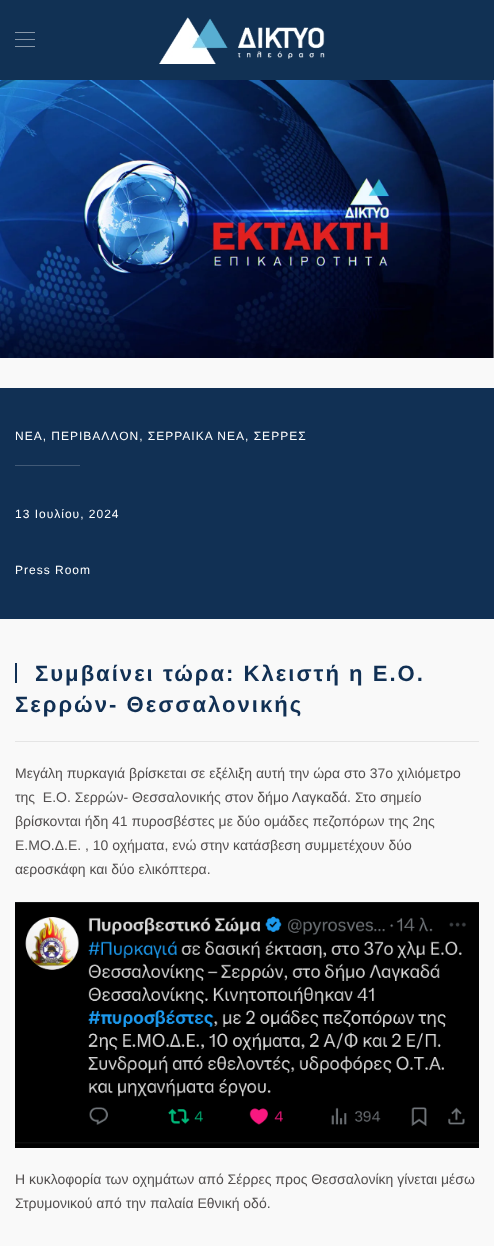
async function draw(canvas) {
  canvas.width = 494
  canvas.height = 1246
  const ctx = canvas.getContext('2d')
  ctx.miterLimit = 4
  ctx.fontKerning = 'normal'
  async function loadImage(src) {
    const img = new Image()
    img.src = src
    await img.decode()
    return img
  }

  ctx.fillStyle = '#f9f9f9'
  ctx.fillRect(0, 0, 494, 1246)
  ctx.fillStyle = '#113154'
  ctx.fillRect(0, 0, 494, 80)
  ctx.fillStyle = '#8898aa'
  ctx.fillRect(15, 32, 20, 1)
  ctx.fillRect(15, 39, 20, 1)
  ctx.fillRect(15, 46, 20, 1)
  ctx.drawImage(await loadImage('image0.png'), 159, 17, 166, 47)
  ctx.drawImage(await loadImage('image1.png'), 0, 80, 494, 278)
  ctx.fillStyle = '#113054'
  ctx.fillRect(0, 388, 494, 231)
  ctx.letterSpacing = '1px'
  ctx.font = '12px Liberation Sans'
  ctx.fillStyle = '#fff'
  ctx.fillText('NEA, ΠΕΡΙΒΑΛΛΟΝ, ΣΕΡΡΑΙΚΑ ΝΕΑ, ΣΕΡΡΕΣ', 15, 440)
  ctx.fillStyle = '#415976'
  ctx.fillRect(15, 465, 65, 1)
  ctx.fillStyle = '#fff'
  ctx.fillText('13 Ιουλίου, 2024', 15, 518)
  ctx.fillText('Press Room', 15, 574)
  ctx.fillStyle = '#113054'
  ctx.fillRect(15, 663, 2, 20)
  ctx.letterSpacing = '2px'
  ctx.font = 'bold 22.1px Liberation Sans'
  ctx.fillText('Συμβαίνει τώρα: Κλειστή η Ε.Ο.', 35, 681)
  ctx.fillText('Σερρών- Θεσσαλονικής', 15, 712)
  ctx.fillStyle = '#e5e5e5'
  ctx.fillRect(15, 741, 464, 1)
  ctx.letterSpacing = '0px'
  ctx.font = '14px Liberation Sans'
  ctx.fillStyle = '#524f4f'
  ctx.fillText('Μεγάλη πυρκαγιά βρίσκεται σε εξέλιξη αυτή την ώρα στο 37ο χιλιόμετρο', 15, 778)
  ctx.fillText('της  Ε.Ο. Σερρών- Θεσσαλονικής στον δήμο Λαγκαδά. Στο σημείο', 15, 802)
  ctx.fillText('βρίσκονται ήδη 41 πυροσβέστες με δύο ομάδες πεζοπόρων της 2ης', 15, 826)
  ctx.fillText('Ε.ΜΟ.Δ.Ε. , 10 οχήματα, ενώ στην κατάσβεση συμμετέχουν δύο', 15, 850)
  ctx.fillText('αεροσκάφη και δύο ελικόπτερα.', 15, 874)
  ctx.drawImage(await loadImage('image2.png'), 15, 902, 464, 246)
  ctx.fillText('Η κυκλοφορία των οχημάτων από Σέρρες προς Θεσσαλονίκη γίνεται μέσω', 15, 1184)
  ctx.fillText('Στρυμονικού από την παλαία Εθνική οδό.', 15, 1208)
}

draw(document.querySelector('canvas'))
